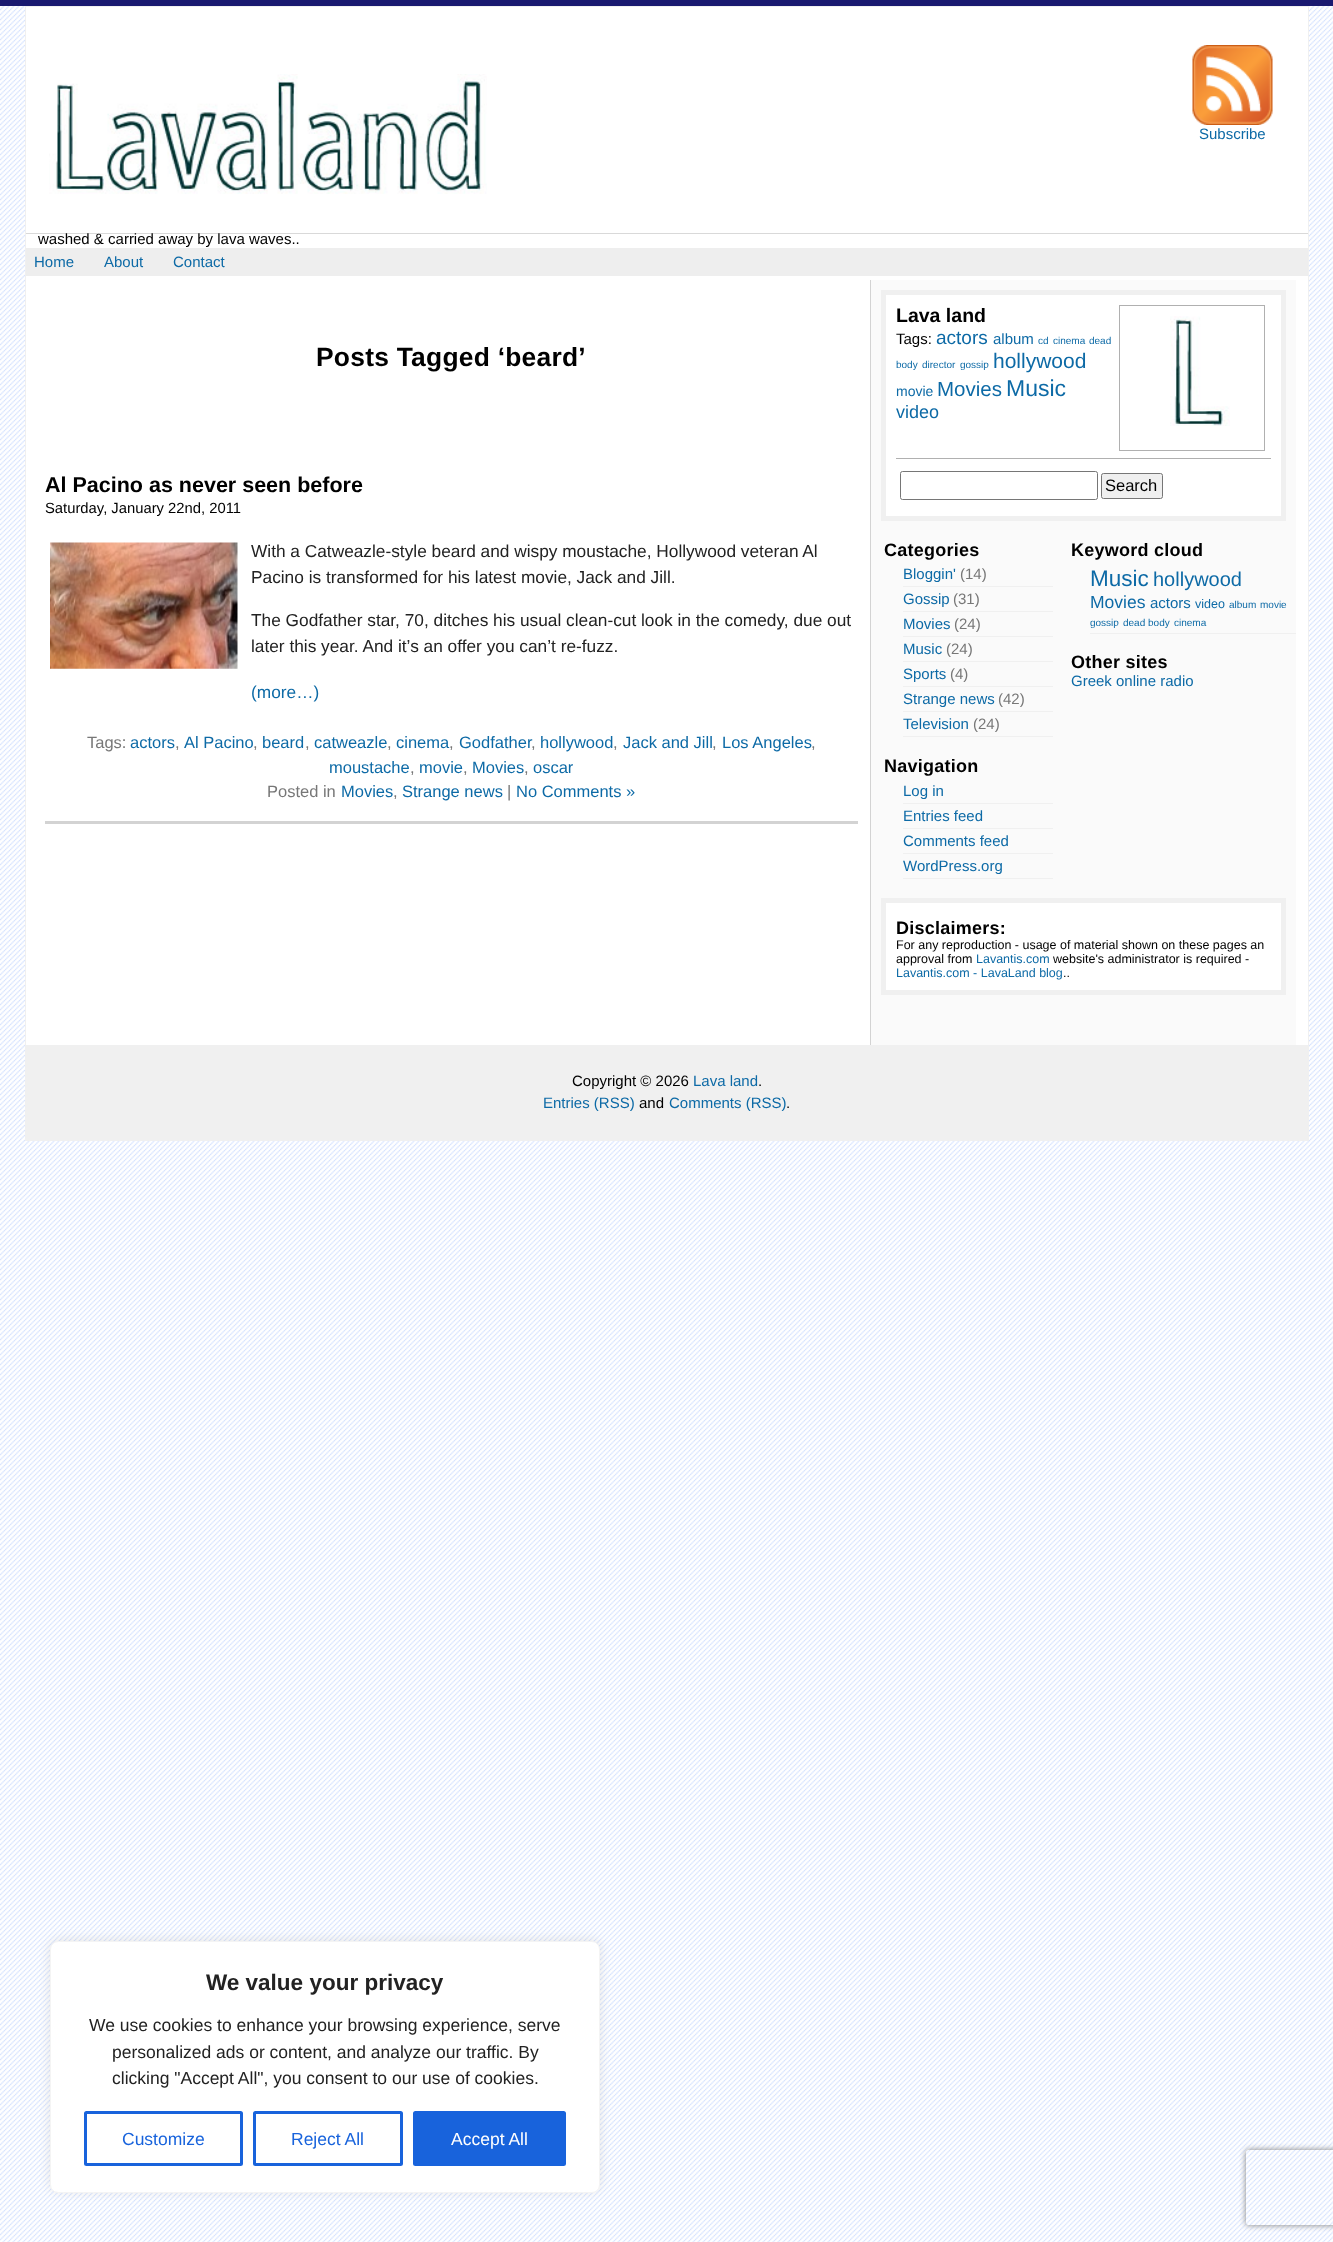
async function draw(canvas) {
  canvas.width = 1333
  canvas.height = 2242
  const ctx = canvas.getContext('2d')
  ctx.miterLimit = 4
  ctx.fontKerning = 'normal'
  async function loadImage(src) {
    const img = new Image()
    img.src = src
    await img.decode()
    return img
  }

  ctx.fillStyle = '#fff'
  ctx.fillRect(0, 0, 1333, 2242)
  ctx.drawImage(await loadImage('image0.png'), 0, 6, 1333, 2236)
  ctx.fillStyle = '#191970'
  ctx.fillRect(0, 0, 1333, 6)
  ctx.fillStyle = '#fff'
  ctx.fillRect(26, 7, 1282, 1038)
  ctx.strokeStyle = '#f0f0f0'
  ctx.strokeRect(25.5, 6.5, 1283, 1134)
  ctx.fillStyle = '#d9d9d9'
  ctx.fillRect(26, 233, 1282, 1)
  ctx.drawImage(await loadImage('image1.png'), 1192, 45, 81, 80)
  ctx.font = '15px Liberation Sans'
  ctx.fillStyle = '#0d6aa6'
  ctx.fillText('Subscribe', 1199, 139)
  ctx.drawImage(await loadImage('image2.png'), 49, 74, 438, 120)
  ctx.fillStyle = '#000'
  ctx.fillText('washed & carried away by lava waves..', 38, 244)
  ctx.fillStyle = '#eee'
  ctx.fillRect(26, 248, 1282, 28)
  ctx.fillStyle = '#0d6aa6'
  ctx.fillText('Home', 34, 267)
  ctx.fillText('About', 104, 267)
  ctx.fillText('Contact', 173, 267)
  ctx.letterSpacing = '0.25px'
  ctx.font = 'bold 26.4px Liberation Sans'
  ctx.fillStyle = '#000'
  ctx.fillText('Posts Tagged ‘beard’', 316, 366)
  ctx.fillStyle = '#d3d3d3'
  ctx.fillRect(45, 821, 813, 3)
  ctx.letterSpacing = '0px'
  ctx.font = 'bold 21.5px Liberation Sans'
  ctx.fillStyle = '#000'
  ctx.fillText('Al Pacino as never seen before', 45, 492)
  ctx.font = '14.8px Liberation Sans'
  ctx.fillText('Saturday, January 22nd, 2011', 45, 513)
  ctx.drawImage(await loadImage('image3.png'), 50, 542, 188, 127)
  ctx.font = '17.3px Liberation Sans'
  ctx.fillStyle = '#222'
  ctx.fillText('With a Catweazle-style beard and wispy moustache, Hollywood veteran Al', 251, 557)
  ctx.fillText('Pacino is transformed for his latest movie, Jack and Jill.', 251, 583)
  ctx.fillText('The Godfather star, 70, ditches his usual clean-cut look in the comedy, due out', 251, 626)
  ctx.fillText('later this year. And it’s an offer you can’t re-fuzz.', 251, 652)
  ctx.fillStyle = '#0d6aa6'
  ctx.fillText('(more…)', 251, 698)
  ctx.font = '16.5px Liberation Sans'
  ctx.fillStyle = '#777'
  ctx.fillText('Tags:', 87, 748)
  ctx.fillStyle = '#0d6aa6'
  ctx.fillText('actors', 130, 748)
  ctx.fillStyle = '#777'
  ctx.fillText(',', 175, 748)
  ctx.fillStyle = '#0d6aa6'
  ctx.fillText('Al Pacino', 184, 748)
  ctx.fillStyle = '#777'
  ctx.fillText(',', 253, 748)
  ctx.fillStyle = '#0d6aa6'
  ctx.fillText('beard', 262, 748)
  ctx.fillStyle = '#777'
  ctx.fillText(',', 305, 748)
  ctx.fillStyle = '#0d6aa6'
  ctx.fillText('catweazle', 314, 748)
  ctx.fillStyle = '#777'
  ctx.fillText(',', 387, 748)
  ctx.fillStyle = '#0d6aa6'
  ctx.fillText('cinema', 396, 748)
  ctx.fillStyle = '#777'
  ctx.fillText(',', 449, 748)
  ctx.fillStyle = '#0d6aa6'
  ctx.fillText('Godfather', 459, 748)
  ctx.fillStyle = '#777'
  ctx.fillText(',', 531, 748)
  ctx.fillStyle = '#0d6aa6'
  ctx.fillText('hollywood', 540, 748)
  ctx.fillStyle = '#777'
  ctx.fillText(',', 613, 748)
  ctx.fillStyle = '#0d6aa6'
  ctx.fillText('Jack and Jill', 623, 748)
  ctx.fillStyle = '#777'
  ctx.fillText(',', 712, 748)
  ctx.fillStyle = '#0d6aa6'
  ctx.fillText('Los Angeles', 722, 748)
  ctx.fillStyle = '#777'
  ctx.fillText(',', 811, 748)
  ctx.fillStyle = '#0d6aa6'
  ctx.fillText('moustache', 329, 773)
  ctx.fillStyle = '#777'
  ctx.fillText(',', 410, 773)
  ctx.fillStyle = '#0d6aa6'
  ctx.fillText('movie', 419, 773)
  ctx.fillStyle = '#777'
  ctx.fillText(',', 463, 773)
  ctx.fillStyle = '#0d6aa6'
  ctx.fillText('Movies', 472, 773)
  ctx.fillStyle = '#777'
  ctx.fillText(',', 524, 773)
  ctx.fillStyle = '#0d6aa6'
  ctx.fillText('oscar', 533, 773)
  ctx.fillStyle = '#777'
  ctx.fillText('Posted in', 267, 797)
  ctx.fillStyle = '#0d6aa6'
  ctx.fillText('Movies', 341, 797)
  ctx.fillStyle = '#777'
  ctx.fillText(',', 393, 797)
  ctx.fillStyle = '#0d6aa6'
  ctx.fillText('Strange news', 402, 797)
  ctx.fillStyle = '#777'
  ctx.fillText('|', 507, 797)
  ctx.fillStyle = '#0d6aa6'
  ctx.fillText('No Comments »', 516, 797)
  ctx.fillStyle = '#fafafa'
  ctx.fillRect(871, 280, 425, 765)
  ctx.fillStyle = '#d3d3d3'
  ctx.fillRect(870, 280, 1, 765)
  ctx.fillStyle = '#fff'
  ctx.beginPath()
  ctx.rect(883.5, 292.5, 400, 226)
  ctx.fill()
  ctx.lineWidth = 5
  ctx.stroke()
  ctx.font = 'bold 19.5px Liberation Sans'
  ctx.fillStyle = '#000'
  ctx.fillText('Lava land', 896, 322)
  ctx.strokeStyle = '#b0b0b0'
  ctx.lineWidth = 1
  ctx.strokeRect(1119.5, 305.5, 145, 145)
  ctx.drawImage(await loadImage('image4.png'), 1170, 316, 60, 110)
  ctx.font = '15px Liberation Sans'
  ctx.fillText('Tags:', 896, 344)
  ctx.font = '19px Liberation Sans'
  ctx.fillStyle = '#0d6aa6'
  ctx.fillText('actors', 936, 344)
  ctx.font = '15px Liberation Sans'
  ctx.fillText('album', 993, 344)
  ctx.font = '10px Liberation Sans'
  ctx.fillText('cd', 1038, 344)
  ctx.fillText('cinema', 1053, 344)
  ctx.fillText('dead', 1089, 344)
  ctx.fillText('body', 896, 368)
  ctx.fillText('director', 922, 368)
  ctx.fillText('gossip', 960, 368)
  ctx.font = '21px Liberation Sans'
  ctx.fillText('hollywood', 993, 368)
  ctx.font = '14px Liberation Sans'
  ctx.fillText('movie', 896, 396)
  ctx.font = '20.5px Liberation Sans'
  ctx.fillText('Movies', 937, 396)
  ctx.font = '23px Liberation Sans'
  ctx.fillText('Music', 1006, 396)
  ctx.font = '18px Liberation Sans'
  ctx.fillText('video', 896, 418)
  ctx.fillStyle = '#b0b0b0'
  ctx.fillRect(896, 458, 375, 1)
  ctx.beginPath()
  ctx.roundRect(900.5, 471.5, 197, 28, 2)
  ctx.strokeStyle = '#767676'
  ctx.stroke()
  ctx.fillStyle = '#efefef'
  ctx.beginPath()
  ctx.roundRect(1101.5, 473.5, 61, 25, 2)
  ctx.fill()
  ctx.stroke()
  ctx.font = '16.5px Liberation Sans'
  ctx.fillStyle = '#000'
  ctx.fillText('Search', 1105, 491)
  ctx.letterSpacing = '0.25px'
  ctx.font = 'bold 18px Liberation Sans'
  ctx.fillText('Categories', 884, 556)
  ctx.fillStyle = '#f0f0f0'
  ctx.fillRect(903, 586, 150, 1)
  ctx.letterSpacing = '0px'
  ctx.font = '15px Liberation Sans'
  ctx.fillStyle = '#0d6aa6'
  ctx.fillText('Bloggin\'', 903, 579)
  ctx.fillStyle = '#777'
  ctx.fillText('(14)', 960, 579)
  ctx.fillStyle = '#f0f0f0'
  ctx.fillRect(903, 611, 150, 1)
  ctx.fillStyle = '#0d6aa6'
  ctx.fillText('Gossip', 903, 604)
  ctx.fillStyle = '#777'
  ctx.fillText('(31)', 953, 604)
  ctx.fillStyle = '#f0f0f0'
  ctx.fillRect(903, 636, 150, 1)
  ctx.fillStyle = '#0d6aa6'
  ctx.fillText('Movies', 903, 629)
  ctx.fillStyle = '#777'
  ctx.fillText('(24)', 954, 629)
  ctx.fillStyle = '#f0f0f0'
  ctx.fillRect(903, 661, 150, 1)
  ctx.fillStyle = '#0d6aa6'
  ctx.fillText('Music', 903, 654)
  ctx.fillStyle = '#777'
  ctx.fillText('(24)', 946, 654)
  ctx.fillStyle = '#f0f0f0'
  ctx.fillRect(903, 686, 150, 1)
  ctx.fillStyle = '#0d6aa6'
  ctx.fillText('Sports', 903, 679)
  ctx.fillStyle = '#777'
  ctx.fillText('(4)', 950, 679)
  ctx.fillStyle = '#f0f0f0'
  ctx.fillRect(903, 711, 150, 1)
  ctx.fillStyle = '#0d6aa6'
  ctx.fillText('Strange news', 903, 704)
  ctx.fillStyle = '#777'
  ctx.fillText('(42)', 998, 704)
  ctx.fillStyle = '#f0f0f0'
  ctx.fillRect(903, 736, 150, 1)
  ctx.fillStyle = '#0d6aa6'
  ctx.fillText('Television', 903, 729)
  ctx.fillStyle = '#777'
  ctx.fillText('(24)', 973, 729)
  ctx.letterSpacing = '0.25px'
  ctx.font = 'bold 18px Liberation Sans'
  ctx.fillStyle = '#000'
  ctx.fillText('Navigation', 884, 772)
  ctx.fillStyle = '#f0f0f0'
  ctx.fillRect(903, 803, 150, 1)
  ctx.letterSpacing = '0px'
  ctx.font = '15px Liberation Sans'
  ctx.fillStyle = '#0d6aa6'
  ctx.fillText('Log in', 903, 796)
  ctx.fillStyle = '#f0f0f0'
  ctx.fillRect(903, 828, 150, 1)
  ctx.fillStyle = '#0d6aa6'
  ctx.fillText('Entries feed', 903, 821)
  ctx.fillStyle = '#f0f0f0'
  ctx.fillRect(903, 853, 150, 1)
  ctx.fillStyle = '#0d6aa6'
  ctx.fillText('Comments feed', 903, 846)
  ctx.fillStyle = '#f0f0f0'
  ctx.fillRect(903, 878, 150, 1)
  ctx.fillStyle = '#0d6aa6'
  ctx.fillText('WordPress.org', 903, 871)
  ctx.letterSpacing = '0.25px'
  ctx.font = 'bold 18px Liberation Sans'
  ctx.fillStyle = '#000'
  ctx.fillText('Keyword cloud', 1071, 556)
  ctx.fillStyle = '#f0f0f0'
  ctx.fillRect(1090, 633, 206, 1)
  ctx.letterSpacing = '0px'
  ctx.font = '22.5px Liberation Sans'
  ctx.fillStyle = '#0d6aa6'
  ctx.fillText('Music', 1090, 586)
  ctx.font = '20px Liberation Sans'
  ctx.fillText('hollywood', 1153, 586)
  ctx.font = '17.5px Liberation Sans'
  ctx.fillText('Movies', 1090, 608)
  ctx.font = '15px Liberation Sans'
  ctx.fillText('actors', 1150, 608)
  ctx.font = '12.5px Liberation Sans'
  ctx.fillText('video', 1195, 608)
  ctx.font = '10px Liberation Sans'
  ctx.fillText('album', 1229, 608)
  ctx.fillText('movie', 1260, 608)
  ctx.fillText('gossip', 1090, 626)
  ctx.fillText('dead body', 1123, 626)
  ctx.fillText('cinema', 1174, 626)
  ctx.letterSpacing = '0.25px'
  ctx.font = 'bold 18px Liberation Sans'
  ctx.fillStyle = '#000'
  ctx.fillText('Other sites', 1071, 668)
  ctx.letterSpacing = '0px'
  ctx.font = '15px Liberation Sans'
  ctx.fillStyle = '#0d6aa6'
  ctx.fillText('Greek online radio', 1071, 686)
  ctx.fillStyle = '#fff'
  ctx.beginPath()
  ctx.rect(883.5, 900.5, 400, 92)
  ctx.fill()
  ctx.strokeStyle = '#f0f0f0'
  ctx.lineWidth = 5
  ctx.stroke()
  ctx.letterSpacing = '0.25px'
  ctx.font = 'bold 18px Liberation Sans'
  ctx.fillStyle = '#000'
  ctx.fillText('Disclaimers:', 896, 934)
  ctx.letterSpacing = '0px'
  ctx.font = '12.5px Liberation Sans'
  ctx.fillText('For any reproduction - usage of material shown on these pages an', 896, 949)
  ctx.fillText('approval from', 896, 963)
  ctx.fillStyle = '#0d6aa6'
  ctx.fillText('Lavantis.com', 976, 963)
  ctx.fillStyle = '#000'
  ctx.fillText('website\'s administrator is required -', 1053, 963)
  ctx.fillStyle = '#0d6aa6'
  ctx.fillText('Lavantis.com - LavaLand blog', 896, 977)
  ctx.fillStyle = '#000'
  ctx.fillText('..', 1063, 977)
  ctx.fillStyle = '#f0f0f0'
  ctx.fillRect(26, 1045, 1282, 95)
  ctx.font = '15px Liberation Sans'
  ctx.fillStyle = '#000'
  ctx.fillText('Copyright © 2026', 572, 1086)
  ctx.fillStyle = '#0d6aa6'
  ctx.fillText('Lava land', 693, 1086)
  ctx.fillStyle = '#000'
  ctx.fillText('.', 758, 1086)
  ctx.fillStyle = '#0d6aa6'
  ctx.fillText('Entries (RSS)', 543, 1108)
  ctx.fillStyle = '#000'
  ctx.fillText('and', 639, 1108)
  ctx.fillStyle = '#0d6aa6'
  ctx.fillText('Comments (RSS)', 669, 1108)
  ctx.fillStyle = '#000'
  ctx.fillText('.', 786, 1108)
  ctx.fillStyle = '#acabab4d'
  ctx.filter = 'blur(6px)'
  ctx.beginPath()
  ctx.roundRect(50, 1940, 550, 251, 8)
  ctx.fill()
  ctx.filter = 'none'
  ctx.fillStyle = '#fff'
  ctx.beginPath()
  ctx.roundRect(50.5, 1941.5, 549, 251, 7.5)
  ctx.fill()
  ctx.strokeStyle = '#f4f4f4'
  ctx.lineWidth = 1
  ctx.stroke()
  ctx.font = 'bold 22.5px Liberation Sans'
  ctx.fillStyle = '#222'
  ctx.fillText('We value your privacy', 206, 1990)
  ctx.font = '17.5px Liberation Sans'
  ctx.fillText('We use cookies to enhance your browsing experience, serve', 89, 2031)
  ctx.fillText('personalized ads or content, and analyze our traffic. By', 112, 2058)
  ctx.fillText('clicking "Accept All", you consent to our use of cookies.', 112, 2084)
  ctx.beginPath()
  ctx.roundRect(85.5, 2112.5, 156, 52, 1)
  ctx.strokeStyle = '#1863dc'
  ctx.lineWidth = 3
  ctx.stroke()
  ctx.fillStyle = '#1863dc'
  ctx.fillText('Customize', 122, 2145)
  ctx.beginPath()
  ctx.roundRect(254.5, 2112.5, 147, 52, 1)
  ctx.stroke()
  ctx.fillText('Reject All', 291, 2145)
  ctx.beginPath()
  ctx.roundRect(414.5, 2112.5, 150, 52, 1)
  ctx.fill()
  ctx.stroke()
  ctx.fillStyle = '#fff'
  ctx.fillText('Accept All', 451, 2145)
  ctx.save()
  ctx.beginPath()
  ctx.moveTo(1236, 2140)
  ctx.lineTo(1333, 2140)
  ctx.lineTo(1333, 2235)
  ctx.lineTo(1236, 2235)
  ctx.closePath()
  ctx.moveTo(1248.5, 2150)
  ctx.lineTo(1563.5, 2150)
  ctx.bezierCurveTo(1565, 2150, 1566, 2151, 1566, 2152.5)
  ctx.lineTo(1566, 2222.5)
  ctx.bezierCurveTo(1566, 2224, 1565, 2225, 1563.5, 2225)
  ctx.lineTo(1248.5, 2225)
  ctx.bezierCurveTo(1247, 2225, 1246, 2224, 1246, 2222.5)
  ctx.lineTo(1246, 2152.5)
  ctx.bezierCurveTo(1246, 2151, 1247, 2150, 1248.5, 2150)
  ctx.closePath()
  ctx.clip('evenodd')
  ctx.fillStyle = '#808080'
  ctx.filter = 'blur(3px)'
  ctx.beginPath()
  ctx.roundRect(1246, 2150, 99, 75, 2.5)
  ctx.fill()
  ctx.filter = 'none'
  ctx.restore()
}

draw(document.querySelector('canvas'))
